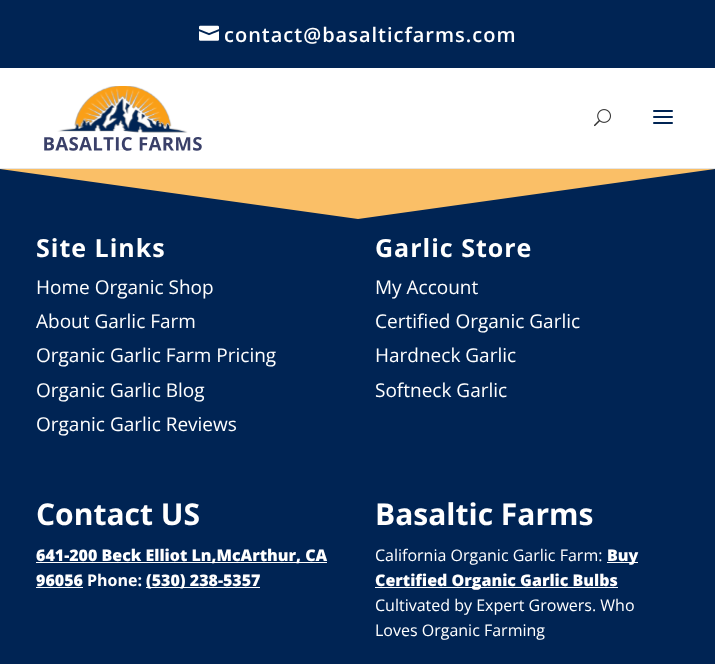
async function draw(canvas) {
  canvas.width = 715
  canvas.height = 664
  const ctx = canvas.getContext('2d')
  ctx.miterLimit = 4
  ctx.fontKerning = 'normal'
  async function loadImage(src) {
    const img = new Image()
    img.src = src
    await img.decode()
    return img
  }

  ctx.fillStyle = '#fff'
  ctx.fillRect(0, 0, 715, 664)
  ctx.fillStyle = '#002454'
  ctx.fillRect(0, 0, 715, 68)
  ctx.drawImage(await loadImage('image0.png'), 199, 25, 20, 16)
  ctx.letterSpacing = '1px'
  ctx.font = '600 20px Open Sans'
  ctx.fillStyle = '#fff'
  ctx.fillText('contact@basalticfarms.com', 224, 42)
  ctx.fillStyle = '#e6e6e6'
  ctx.fillRect(0, 168, 715, 1)
  ctx.drawImage(await loadImage('image1.png'), 44, 86, 158, 65)
  ctx.drawImage(await loadImage('image2.png'), 594, 109, 17, 18)
  ctx.drawImage(await loadImage('image3.png'), 653, 110, 20, 14)
  ctx.fillStyle = '#002454'
  ctx.fillRect(0, 169, 715, 495)
  ctx.fillStyle = '#fabf67'
  ctx.beginPath()
  ctx.moveTo(358, 219)
  ctx.lineTo(715, 169)
  ctx.lineTo(0, 169)
  ctx.closePath()
  ctx.fill()
  ctx.font = 'bold 25px Open Sans'
  ctx.fillStyle = '#fff'
  ctx.fillText('Site Links', 36, 257)
  ctx.letterSpacing = '0px'
  ctx.font = '19px Open Sans'
  ctx.fillText('Home Organic Shop', 36, 294)
  ctx.fillText('About Garlic Farm', 36, 328)
  ctx.fillText('Organic Garlic Farm Pricing', 36, 362)
  ctx.fillText('Organic Garlic Blog', 36, 397)
  ctx.fillText('Organic Garlic Reviews', 36, 431)
  ctx.letterSpacing = '1px'
  ctx.font = 'bold 25px Open Sans'
  ctx.fillText('Garlic Store', 375, 257)
  ctx.letterSpacing = '0px'
  ctx.font = '19px Open Sans'
  ctx.fillText('My Account', 375, 294)
  ctx.fillText('Certified Organic Garlic', 375, 328)
  ctx.fillText('Hardneck Garlic', 375, 362)
  ctx.fillText('Softneck Garlic', 375, 397)
  ctx.font = 'bold 30px Open Sans'
  ctx.fillText('Contact US', 36, 525)
  ctx.fillRect(36, 562, 291, 1)
  ctx.font = '800 16px Open Sans'
  ctx.fillText('641-200 Beck Elliot Ln,McArthur, CA', 36, 561)
  ctx.fillText('96056', 36, 586)
  ctx.fillRect(36, 587, 47, 1)
  ctx.font = 'bold 16px Open Sans'
  ctx.fillText('Phone:', 87, 586)
  ctx.fillRect(146, 587, 114, 1)
  ctx.font = '800 16px Open Sans'
  ctx.fillText('(530) 238-5357', 146, 586)
  ctx.font = 'bold 30px Open Sans'
  ctx.fillText('Basaltic Farms', 375, 525)
  ctx.font = '16px Open Sans'
  ctx.fillText('California Organic Garlic Farm:', 375, 561)
  ctx.fillRect(607, 562, 31, 1)
  ctx.font = '800 16px Open Sans'
  ctx.fillText('Buy', 607, 561)
  ctx.fillRect(375, 587, 243, 1)
  ctx.fillText('Certified Organic Garlic Bulbs', 375, 586)
  ctx.font = '16px Open Sans'
  ctx.fillText('Cultivated by Expert Growers. Who', 375, 611)
  ctx.fillText('Loves Organic Farming', 375, 636)
}

draw(document.querySelector('canvas'))
